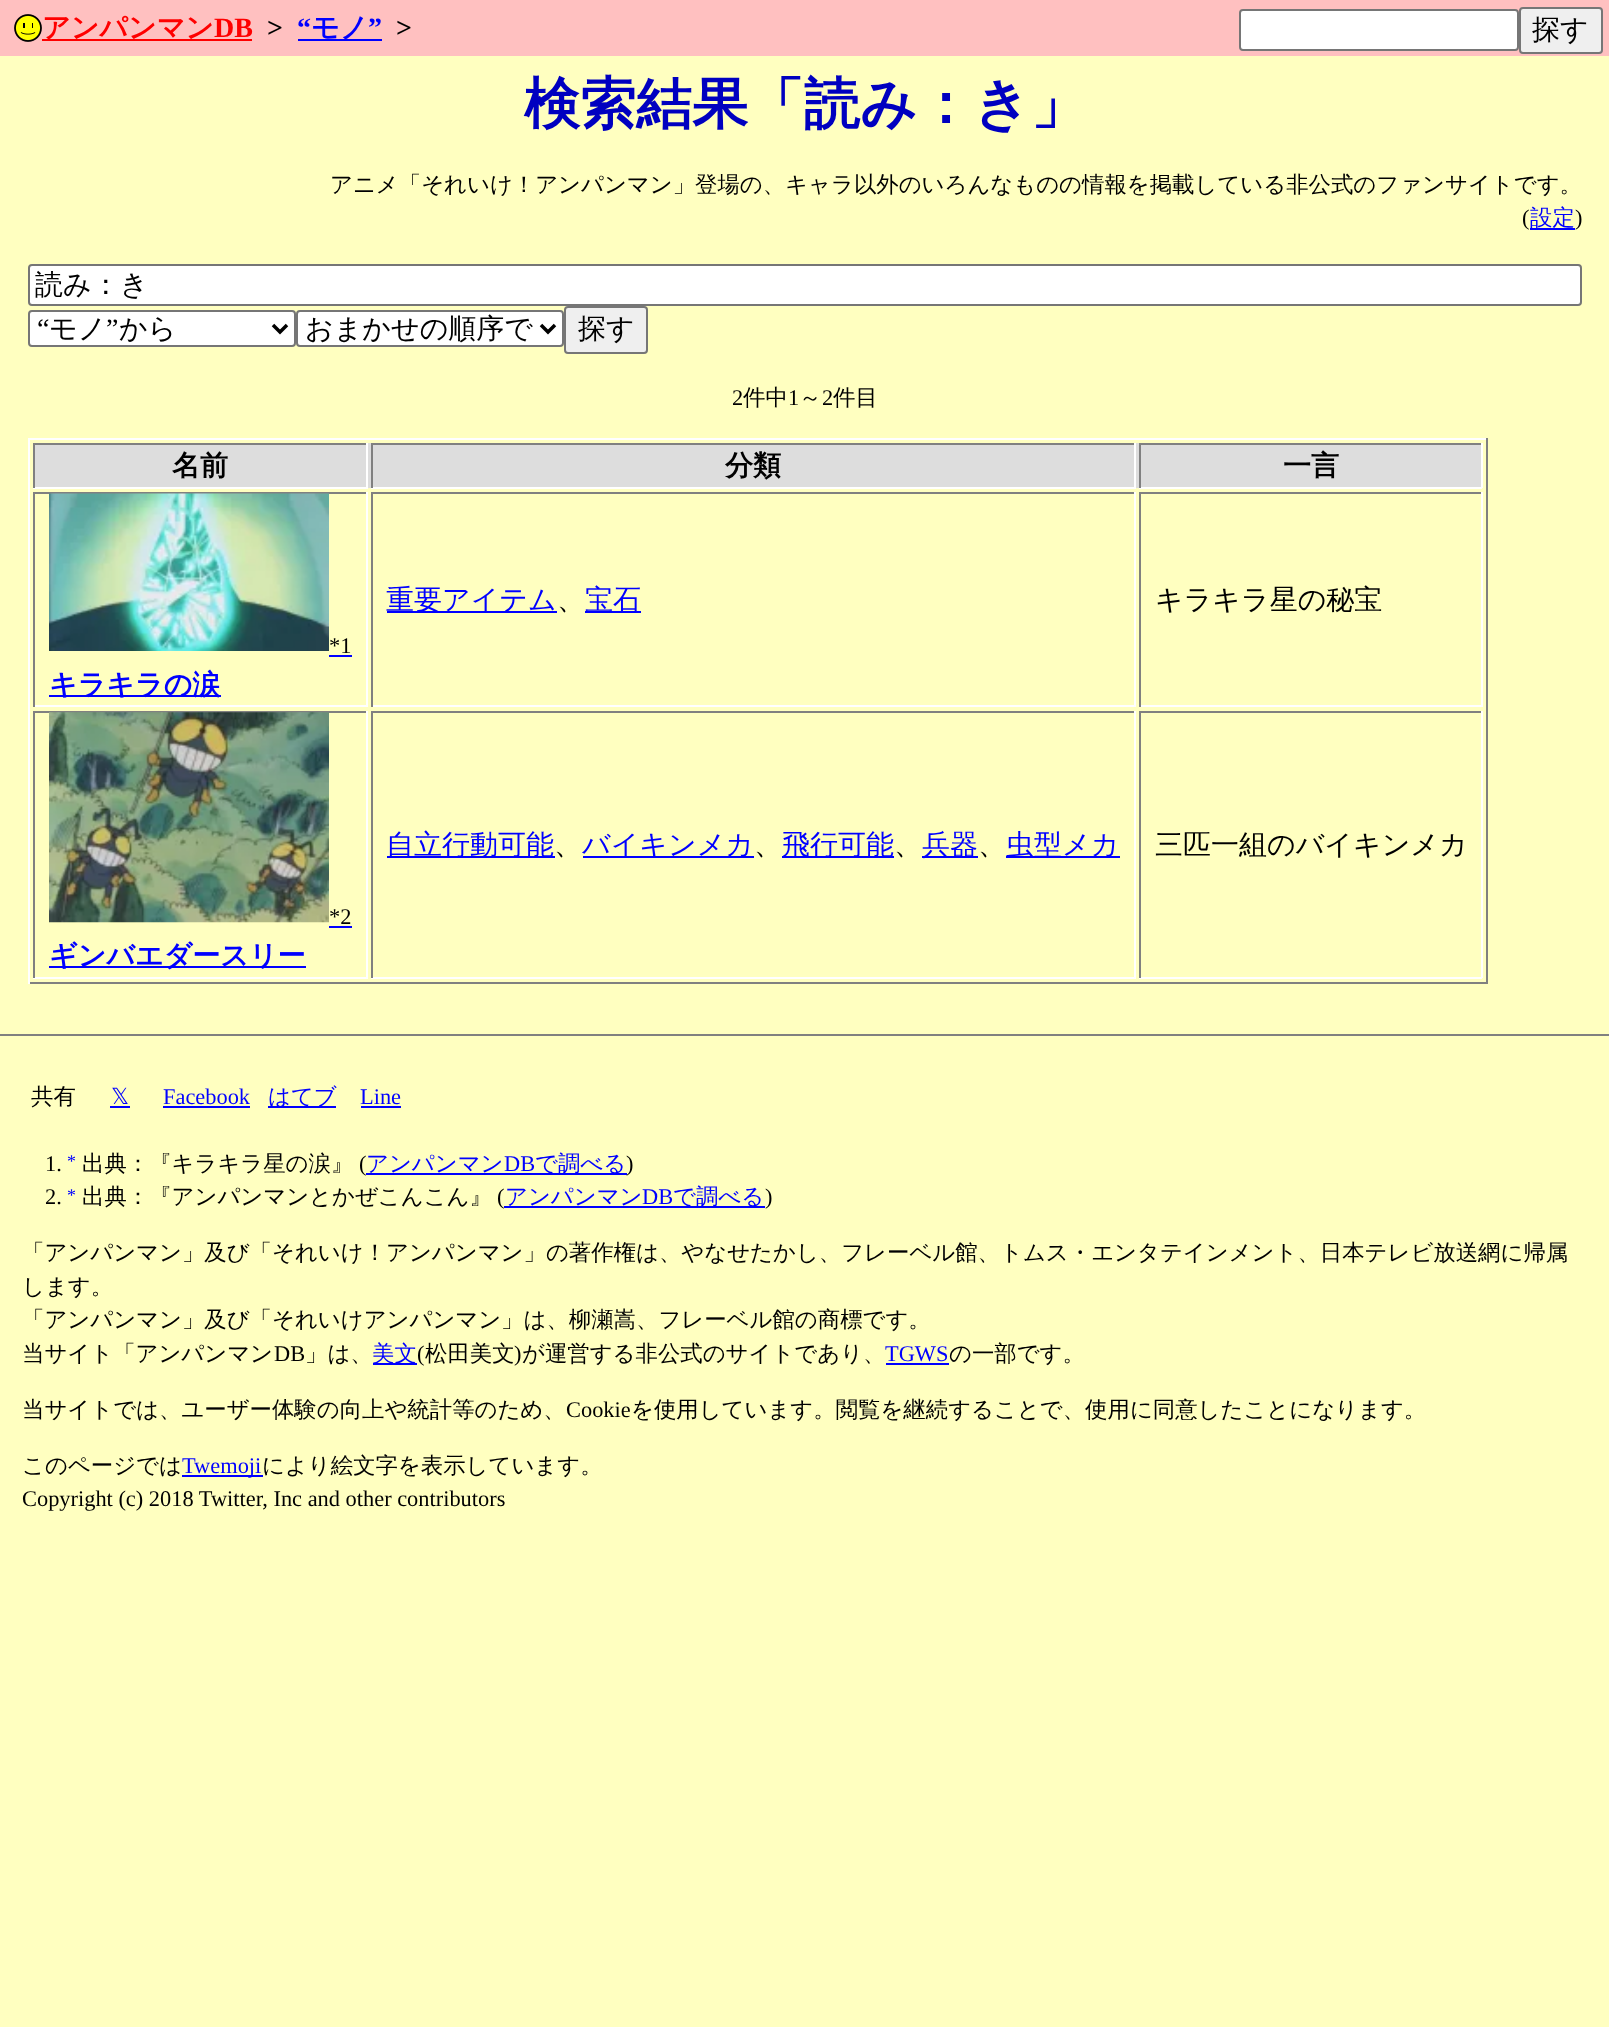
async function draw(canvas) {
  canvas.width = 1609
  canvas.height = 2027
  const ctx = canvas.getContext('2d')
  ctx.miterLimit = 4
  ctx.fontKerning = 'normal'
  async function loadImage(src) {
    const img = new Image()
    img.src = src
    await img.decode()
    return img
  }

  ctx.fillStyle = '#ffffc0'
  ctx.fillRect(0, 0, 1609, 2027)
  ctx.fillStyle = '#ffc0c0'
  ctx.fillRect(0, 0, 1609, 56)
  ctx.drawImage(await loadImage('image0.png'), 14, 14, 28, 28)
  ctx.fillStyle = '#f00'
  ctx.fillRect(42, 39, 210, 2)
  ctx.font = 'bold 28px WenQuanYi Zen Hei'
  ctx.fillText('アンパンマン', 42, 37)
  ctx.font = 'bold 28px Liberation Serif'
  ctx.fillText('DB', 214, 37)
  ctx.fillStyle = '#000'
  ctx.fillText('>', 267, 37)
  ctx.fillStyle = '#00f'
  ctx.fillText('“', 297, 37)
  ctx.fillRect(298, 39, 84, 2)
  ctx.font = 'bold 28px WenQuanYi Zen Hei'
  ctx.fillText('モノ', 311, 37)
  ctx.font = 'bold 28px Liberation Serif'
  ctx.fillText('”', 368, 37)
  ctx.fillStyle = '#000'
  ctx.fillText('>', 396, 37)
  ctx.fillStyle = '#fff'
  ctx.beginPath()
  ctx.roundRect(1240, 10, 278, 40, 3)
  ctx.fill()
  ctx.strokeStyle = '#767676'
  ctx.lineWidth = 2
  ctx.stroke()
  ctx.fillStyle = '#efefef'
  ctx.beginPath()
  ctx.roundRect(1520, 8, 82, 45, 3)
  ctx.fill()
  ctx.stroke()
  ctx.font = '500 28px WenQuanYi Zen Hei'
  ctx.fillStyle = '#000'
  ctx.fillText('探す', 1532, 39)
  ctx.font = 'bold 56px WenQuanYi Zen Hei'
  ctx.fillStyle = '#0000c0'
  ctx.fillText('検索結果「読み：き」', 524, 123)
  ctx.font = '500 22.4px WenQuanYi Zen Hei'
  ctx.fillStyle = '#000'
  ctx.fillText('アニメ「それいけ！アンパンマン」登場の、キャラ以外のいろんなものの情報を掲載している非公式のファンサイトです。', 330, 192)
  ctx.font = '22.4px Liberation Serif'
  ctx.fillText('(', 1522, 225)
  ctx.fillStyle = '#00f'
  ctx.fillRect(1530, 228, 45, 2)
  ctx.font = '500 22.4px WenQuanYi Zen Hei'
  ctx.fillText('設定', 1530, 225)
  ctx.font = '22.4px Liberation Serif'
  ctx.fillStyle = '#000'
  ctx.fillText(')', 1575, 225)
  ctx.fillStyle = '#fff'
  ctx.beginPath()
  ctx.roundRect(29, 265, 1552, 40, 3)
  ctx.fill()
  ctx.stroke()
  ctx.font = '500 28px WenQuanYi Zen Hei'
  ctx.fillStyle = '#000'
  ctx.fillText('読み：き', 35, 294)
  ctx.fillStyle = '#fff'
  ctx.beginPath()
  ctx.roundRect(29, 311, 266, 35, 3)
  ctx.fill()
  ctx.stroke()
  ctx.beginPath()
  ctx.moveTo(273, 325)
  ctx.lineTo(280, 332)
  ctx.lineTo(287, 325)
  ctx.strokeStyle = '#000'
  ctx.lineWidth = 3.5
  ctx.stroke()
  ctx.font = '28px Liberation Serif'
  ctx.fillStyle = '#000'
  ctx.fillText('“', 37, 338)
  ctx.font = '500 28px WenQuanYi Zen Hei'
  ctx.fillText('モノ', 49, 338)
  ctx.font = '28px Liberation Serif'
  ctx.fillText('”', 106, 338)
  ctx.font = '500 28px WenQuanYi Zen Hei'
  ctx.fillText('から', 119, 338)
  ctx.fillStyle = '#fff'
  ctx.beginPath()
  ctx.roundRect(297, 311, 266, 35, 3)
  ctx.fill()
  ctx.strokeStyle = '#767676'
  ctx.lineWidth = 2
  ctx.stroke()
  ctx.beginPath()
  ctx.moveTo(541, 325)
  ctx.lineTo(548, 332)
  ctx.lineTo(555, 325)
  ctx.strokeStyle = '#000'
  ctx.lineWidth = 3.5
  ctx.stroke()
  ctx.fillStyle = '#000'
  ctx.fillText('おまかせの順序で', 305, 338)
  ctx.fillStyle = '#efefef'
  ctx.beginPath()
  ctx.roundRect(565, 307, 82, 46, 3)
  ctx.fill()
  ctx.strokeStyle = '#767676'
  ctx.lineWidth = 2
  ctx.stroke()
  ctx.fillStyle = '#000'
  ctx.fillText('探す', 578, 338)
  ctx.font = '22.4px Liberation Serif'
  ctx.fillText('2', 732, 405)
  ctx.font = '500 22.4px WenQuanYi Zen Hei'
  ctx.fillText('件中', 743, 405)
  ctx.font = '22.4px Liberation Serif'
  ctx.fillText('1', 788, 405)
  ctx.font = '500 22.4px WenQuanYi Zen Hei'
  ctx.fillText('～', 799, 405)
  ctx.font = '22.4px Liberation Serif'
  ctx.fillText('2', 822, 405)
  ctx.font = '500 22.4px WenQuanYi Zen Hei'
  ctx.fillText('件目', 833, 405)
  ctx.fillStyle = '#fff'
  ctx.fillRect(28, 438, 1460, 2)
  ctx.fillStyle = '#808080'
  ctx.fillRect(1486, 438, 2, 546)
  ctx.fillRect(28, 982, 1460, 2)
  ctx.fillStyle = '#fff'
  ctx.fillRect(28, 438, 2, 546)
  ctx.fillStyle = '#ddd'
  ctx.fillRect(35, 443, 1446, 45)
  ctx.fillStyle = '#808080'
  ctx.fillRect(33, 443, 335, 2)
  ctx.fillStyle = '#fff'
  ctx.fillRect(366, 443, 2, 45)
  ctx.fillRect(33, 487, 335, 2)
  ctx.fillStyle = '#808080'
  ctx.fillRect(33, 443, 2, 45)
  ctx.font = 'bold 28px WenQuanYi Zen Hei'
  ctx.fillStyle = '#000'
  ctx.fillText('名前', 172, 475)
  ctx.fillStyle = '#808080'
  ctx.fillRect(371, 443, 765, 2)
  ctx.fillStyle = '#fff'
  ctx.fillRect(1134, 443, 2, 45)
  ctx.fillRect(371, 487, 765, 2)
  ctx.fillStyle = '#808080'
  ctx.fillRect(371, 443, 2, 45)
  ctx.fillStyle = '#000'
  ctx.fillText('分類', 725, 475)
  ctx.fillStyle = '#808080'
  ctx.fillRect(1139, 443, 343, 2)
  ctx.fillStyle = '#fff'
  ctx.fillRect(1481, 443, 2, 45)
  ctx.fillRect(1139, 487, 343, 2)
  ctx.fillStyle = '#808080'
  ctx.fillRect(1139, 443, 2, 45)
  ctx.fillStyle = '#000'
  ctx.fillText('一言', 1283, 475)
  ctx.fillStyle = '#808080'
  ctx.fillRect(371, 492, 765, 2)
  ctx.fillStyle = '#fff'
  ctx.fillRect(1134, 492, 2, 215)
  ctx.fillRect(371, 705, 765, 2)
  ctx.fillStyle = '#808080'
  ctx.fillRect(371, 492, 2, 215)
  ctx.fillStyle = '#00f'
  ctx.fillRect(387, 611, 170, 2)
  ctx.font = '500 28px WenQuanYi Zen Hei'
  ctx.fillText('重要アイテム', 386, 609)
  ctx.fillStyle = '#000'
  ctx.fillText('、', 557, 609)
  ctx.fillStyle = '#00f'
  ctx.fillRect(585, 611, 56, 2)
  ctx.fillText('宝石', 585, 609)
  ctx.fillStyle = '#808080'
  ctx.fillRect(1139, 492, 343, 2)
  ctx.fillStyle = '#fff'
  ctx.fillRect(1481, 492, 2, 215)
  ctx.fillRect(1139, 705, 343, 2)
  ctx.fillStyle = '#808080'
  ctx.fillRect(1139, 492, 2, 215)
  ctx.fillStyle = '#000'
  ctx.fillText('キラキラ星の秘宝', 1155, 609)
  ctx.fillStyle = '#808080'
  ctx.fillRect(33, 492, 335, 2)
  ctx.fillStyle = '#fff'
  ctx.fillRect(366, 492, 2, 215)
  ctx.fillRect(33, 705, 335, 2)
  ctx.fillStyle = '#808080'
  ctx.fillRect(33, 492, 2, 215)
  ctx.drawImage(await loadImage('image1.png'), 49, 493, 280, 158)
  ctx.font = '22.4px Liberation Serif'
  ctx.fillStyle = '#000'
  ctx.fillText('*1', 329, 653)
  ctx.fillStyle = '#00f'
  ctx.fillRect(329, 655, 23, 2)
  ctx.fillRect(49, 695, 172, 2)
  ctx.font = 'bold 28px WenQuanYi Zen Hei'
  ctx.fillText('キラキラの涙', 49, 694)
  ctx.fillStyle = '#808080'
  ctx.fillRect(371, 711, 765, 2)
  ctx.fillStyle = '#fff'
  ctx.fillRect(1134, 711, 2, 267)
  ctx.fillRect(371, 977, 765, 2)
  ctx.fillStyle = '#808080'
  ctx.fillRect(371, 711, 2, 267)
  ctx.fillStyle = '#00f'
  ctx.fillRect(387, 856, 168, 2)
  ctx.font = '500 28px WenQuanYi Zen Hei'
  ctx.fillText('自立行動可能', 386, 854)
  ctx.fillStyle = '#000'
  ctx.fillText('、', 554, 854)
  ctx.fillStyle = '#00f'
  ctx.fillRect(583, 856, 171, 2)
  ctx.fillText('バイキンメカ', 582, 854)
  ctx.fillStyle = '#000'
  ctx.fillText('、', 754, 854)
  ctx.fillStyle = '#00f'
  ctx.fillRect(782, 856, 112, 2)
  ctx.fillText('飛行可能', 782, 854)
  ctx.fillStyle = '#000'
  ctx.fillText('、', 894, 854)
  ctx.fillStyle = '#00f'
  ctx.fillRect(922, 856, 56, 2)
  ctx.fillText('兵器', 922, 854)
  ctx.fillStyle = '#000'
  ctx.fillText('、', 978, 854)
  ctx.fillStyle = '#00f'
  ctx.fillRect(1006, 856, 114, 2)
  ctx.fillText('虫型メカ', 1006, 854)
  ctx.fillStyle = '#808080'
  ctx.fillRect(1139, 711, 343, 2)
  ctx.fillStyle = '#fff'
  ctx.fillRect(1481, 711, 2, 267)
  ctx.fillRect(1139, 977, 343, 2)
  ctx.fillStyle = '#808080'
  ctx.fillRect(1139, 711, 2, 267)
  ctx.fillStyle = '#000'
  ctx.fillText('三匹一組のバイキンメカ', 1155, 854)
  ctx.fillStyle = '#808080'
  ctx.fillRect(33, 711, 335, 2)
  ctx.fillStyle = '#fff'
  ctx.fillRect(366, 711, 2, 267)
  ctx.fillRect(33, 977, 335, 2)
  ctx.fillStyle = '#808080'
  ctx.fillRect(33, 711, 2, 267)
  ctx.drawImage(await loadImage('image2.png'), 49, 712, 280, 211)
  ctx.font = '22.4px Liberation Serif'
  ctx.fillStyle = '#000'
  ctx.fillText('*2', 329, 924)
  ctx.fillStyle = '#00f'
  ctx.fillRect(329, 926, 23, 2)
  ctx.fillRect(49, 966, 257, 2)
  ctx.font = 'bold 28px WenQuanYi Zen Hei'
  ctx.fillText('ギンバエダースリー', 49, 965)
  ctx.fillStyle = '#808080'
  ctx.fillRect(0, 1034, 1609, 2)
  ctx.font = '500 22.4px WenQuanYi Zen Hei'
  ctx.fillStyle = '#000'
  ctx.fillText('共有', 31, 1104)
  ctx.font = '22.4px DejaVu Sans'
  ctx.fillStyle = '#00f'
  ctx.fillText('𝕏', 111, 1104)
  ctx.fillRect(110, 1106, 20, 2)
  ctx.font = '22.4px Liberation Serif'
  ctx.fillText('Facebook', 163, 1104)
  ctx.fillRect(163, 1106, 87, 2)
  ctx.fillRect(268, 1106, 68, 2)
  ctx.font = '500 22.4px WenQuanYi Zen Hei'
  ctx.fillText('はてブ', 268, 1104)
  ctx.font = '22.4px Liberation Serif'
  ctx.fillText('Line', 360, 1104)
  ctx.fillRect(361, 1106, 40, 2)
  ctx.fillStyle = '#000'
  ctx.fillText('1.', 45, 1171)
  ctx.font = '18px Liberation Serif'
  ctx.fillStyle = '#00f'
  ctx.fillText('*', 67, 1167)
  ctx.font = '500 22.4px WenQuanYi Zen Hei'
  ctx.fillStyle = '#000'
  ctx.fillText('出典：『キラキラ星の涙』', 82, 1171)
  ctx.font = '22.4px Liberation Serif'
  ctx.fillText('(', 359, 1171)
  ctx.fillStyle = '#00f'
  ctx.fillRect(366, 1173, 261, 2)
  ctx.font = '500 22.4px WenQuanYi Zen Hei'
  ctx.fillText('アンパンマン', 366, 1171)
  ctx.font = '22.4px Liberation Serif'
  ctx.fillText('DB', 504, 1171)
  ctx.font = '500 22.4px WenQuanYi Zen Hei'
  ctx.fillText('で調べる', 535, 1171)
  ctx.font = '22.4px Liberation Serif'
  ctx.fillStyle = '#000'
  ctx.fillText(')', 626, 1171)
  ctx.fillText('2.', 45, 1204)
  ctx.font = '18px Liberation Serif'
  ctx.fillStyle = '#00f'
  ctx.fillText('*', 67, 1201)
  ctx.font = '500 22.4px WenQuanYi Zen Hei'
  ctx.fillStyle = '#000'
  ctx.fillText('出典：『アンパンマンとかぜこんこん』', 82, 1204)
  ctx.font = '22.4px Liberation Serif'
  ctx.fillText('(', 497, 1204)
  ctx.fillStyle = '#00f'
  ctx.fillRect(504, 1206, 261, 2)
  ctx.font = '500 22.4px WenQuanYi Zen Hei'
  ctx.fillText('アンパンマン', 505, 1204)
  ctx.font = '22.4px Liberation Serif'
  ctx.fillText('DB', 642, 1204)
  ctx.font = '500 22.4px WenQuanYi Zen Hei'
  ctx.fillText('で調べる', 673, 1204)
  ctx.font = '22.4px Liberation Serif'
  ctx.fillStyle = '#000'
  ctx.fillText(')', 765, 1204)
  ctx.font = '500 22.4px WenQuanYi Zen Hei'
  ctx.fillText('「アンパンマン」及び「それいけ！アンパンマン」の著作権は、やなせたかし、フレーベル館、トムス・エンタテインメント、日本テレビ放送網に帰属', 22, 1260)
  ctx.fillText('します。', 22, 1294)
  ctx.fillText('「アンパンマン」及び「それいけアンパンマン」は、柳瀬嵩、フレーベル館の商標です。', 22, 1327)
  ctx.fillText('当サイト「アンパンマン', 22, 1361)
  ctx.font = '22.4px Liberation Serif'
  ctx.fillText('DB', 274, 1361)
  ctx.font = '500 22.4px WenQuanYi Zen Hei'
  ctx.fillText('」は、', 305, 1361)
  ctx.fillStyle = '#00f'
  ctx.fillRect(373, 1363, 44, 2)
  ctx.fillText('美文', 372, 1361)
  ctx.font = '22.4px Liberation Serif'
  ctx.fillStyle = '#000'
  ctx.fillText('(', 417, 1361)
  ctx.font = '500 22.4px WenQuanYi Zen Hei'
  ctx.fillText('松田美文', 425, 1361)
  ctx.font = '22.4px Liberation Serif'
  ctx.fillText(')', 514, 1361)
  ctx.font = '500 22.4px WenQuanYi Zen Hei'
  ctx.fillText('が運営する非公式のサイトであり、', 522, 1361)
  ctx.font = '22.4px Liberation Serif'
  ctx.fillStyle = '#00f'
  ctx.fillText('TGWS', 885, 1361)
  ctx.fillRect(886, 1363, 63, 2)
  ctx.font = '500 22.4px WenQuanYi Zen Hei'
  ctx.fillStyle = '#000'
  ctx.fillText('の一部です。', 949, 1361)
  ctx.fillText('当サイトでは、ユーザー体験の向上や統計等のため、', 22, 1417)
  ctx.font = '22.4px Liberation Serif'
  ctx.fillText('Cookie', 566, 1417)
  ctx.font = '500 22.4px WenQuanYi Zen Hei'
  ctx.fillText('を使用しています。閲覧を継続することで、使用に同意したことになります。', 631, 1417)
  ctx.fillText('このページでは', 22, 1473)
  ctx.fillStyle = '#00f'
  ctx.fillRect(182, 1475, 81, 2)
  ctx.font = '22.4px Liberation Serif'
  ctx.fillText('Twemoji', 182, 1473)
  ctx.font = '500 22.4px WenQuanYi Zen Hei'
  ctx.fillStyle = '#000'
  ctx.fillText('により絵文字を表示しています。', 262, 1473)
  ctx.font = '22.4px Liberation Serif'
  ctx.fillText('Copyright (c) 2018 Twitter, Inc and other contributors', 22, 1506)
}

draw(document.querySelector('canvas'))
